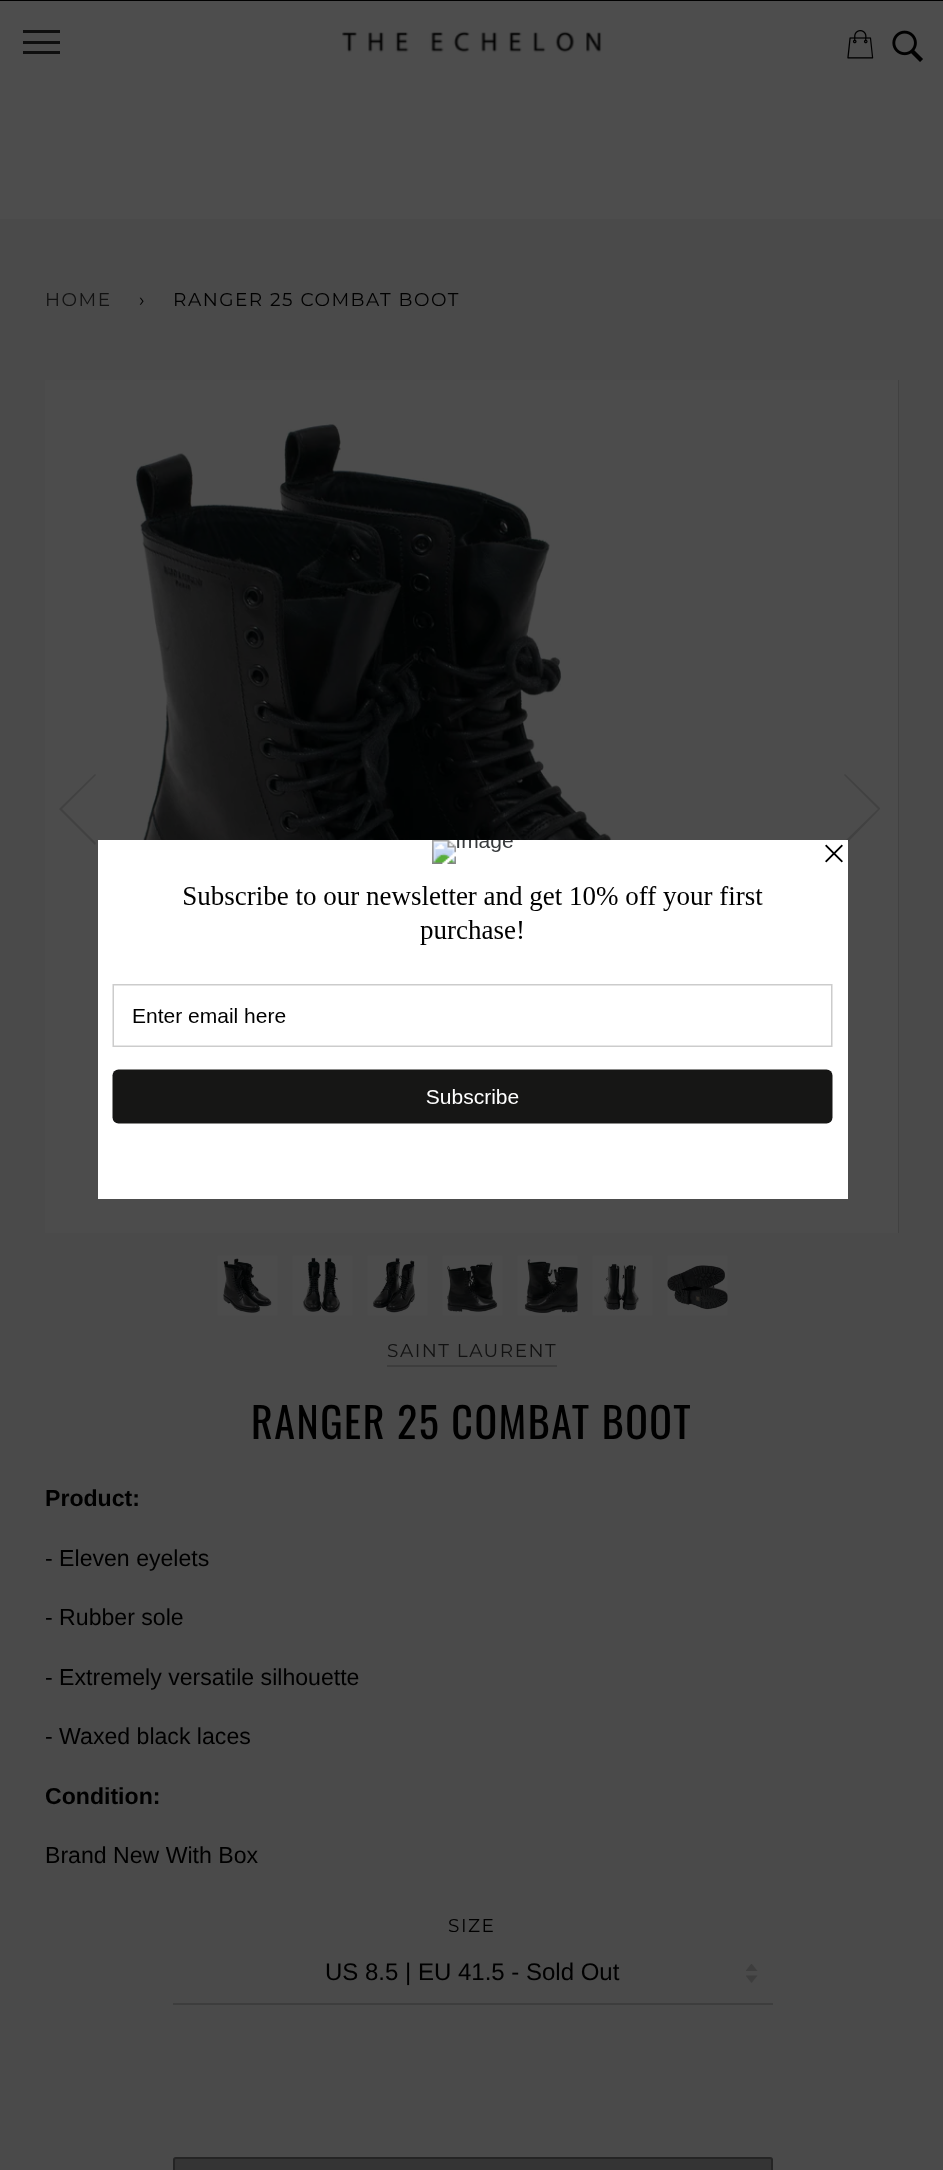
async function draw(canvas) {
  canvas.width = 943
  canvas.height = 2170
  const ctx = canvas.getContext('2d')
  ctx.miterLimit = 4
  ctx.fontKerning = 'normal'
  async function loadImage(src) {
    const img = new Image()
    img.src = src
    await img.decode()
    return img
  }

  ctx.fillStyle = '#4d4d4d'
  ctx.fillRect(0, 0, 943, 2170)
  ctx.fillStyle = '#000'
  ctx.fillRect(0, 0, 943, 1)
  ctx.drawImage(await loadImage('image0.png'), 892, 30, 31, 32)
  ctx.drawImage(await loadImage('image1.png'), 847, 30, 27, 29)
  ctx.fillStyle = '#0f0f0f'
  ctx.fillRect(23, 30, 37, 3)
  ctx.fillRect(23, 41, 37, 3)
  ctx.fillRect(23, 51, 37, 3)
  ctx.drawImage(await loadImage('image2.png'), 342, 31, 260, 22)
  ctx.fillStyle = '#4a4a4a'
  ctx.fillRect(0, 219, 943, 1951)
  ctx.letterSpacing = '1.5px'
  ctx.font = '18.5px Montserrat'
  ctx.fillStyle = '#121212'
  ctx.fillText('HOME', 45, 306)
  ctx.fillStyle = '#000'
  ctx.fillText('›', 139, 306)
  ctx.fillText('RANGER 25 COMBAT BOOT', 173, 306)
  ctx.fillStyle = '#333'
  ctx.fillRect(898, 380, 1, 853)
  ctx.drawImage(await loadImage('image3.png'), 45, 380, 854, 853)
  ctx.fillStyle = '#414141'
  ctx.beginPath()
  ctx.moveTo(60, 810)
  ctx.lineTo(95, 845)
  ctx.lineTo(96, 843)
  ctx.lineTo(62, 809)
  ctx.lineTo(96, 775)
  ctx.lineTo(95, 774)
  ctx.lineTo(59, 809)
  ctx.closePath()
  ctx.fill()
  ctx.beginPath()
  ctx.moveTo(880, 808)
  ctx.lineTo(845, 774)
  ctx.lineTo(844, 775)
  ctx.lineTo(878, 809)
  ctx.lineTo(843, 843)
  ctx.lineTo(845, 845)
  ctx.lineTo(880, 809)
  ctx.closePath()
  ctx.fill()
  ctx.drawImage(await loadImage('image4.png'), 217, 1255, 61, 61)
  ctx.drawImage(await loadImage('image5.png'), 292, 1255, 61, 61)
  ctx.drawImage(await loadImage('image6.png'), 367, 1255, 61, 61)
  ctx.drawImage(await loadImage('image7.png'), 442, 1255, 61, 61)
  ctx.drawImage(await loadImage('image8.png'), 517, 1255, 61, 61)
  ctx.drawImage(await loadImage('image9.png'), 592, 1255, 61, 61)
  ctx.drawImage(await loadImage('image10.png'), 667, 1255, 61, 61)
  ctx.fillStyle = '#121212'
  ctx.fillText('SAINT LAURENT', 387, 1357)
  ctx.fillStyle = '#3d3d3d'
  ctx.fillRect(387, 1365, 170, 2)
  ctx.font = '42px Oswald'
  ctx.fillStyle = '#000'
  ctx.fillText('RANGER 25 COMBAT BOOT', 251, 1439)
  ctx.letterSpacing = '0px'
  ctx.font = 'bold 23.1px Liberation Sans'
  ctx.fillText('Product:', 45, 1506)
  ctx.font = '23.1px Liberation Sans'
  ctx.fillText('- Eleven eyelets', 45, 1566)
  ctx.fillText('- Rubber sole', 45, 1625)
  ctx.fillText('- Extremely versatile silhouette', 45, 1685)
  ctx.fillText('- Waxed black laces', 45, 1744)
  ctx.font = 'bold 23.1px Liberation Sans'
  ctx.fillText('Condition:', 45, 1804)
  ctx.font = '23.1px Liberation Sans'
  ctx.fillText('Brand New With Box', 45, 1863)
  ctx.letterSpacing = '1.5px'
  ctx.font = '18.5px Montserrat'
  ctx.fillText('SIZE', 448, 1932)
  ctx.drawImage(await loadImage('image11.png'), 746, 1964, 12, 19)
  ctx.fillStyle = '#3d3d3d'
  ctx.fillRect(173, 2003, 600, 2)
  ctx.letterSpacing = '0px'
  ctx.font = '24px Liberation Sans'
  ctx.fillStyle = '#000'
  ctx.fillText('US 8.5 | EU 41.5 - Sold Out', 325, 1980)
  ctx.fillStyle = '#343434'
  ctx.beginPath()
  ctx.roundRect(173, 2157, 600, 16, 3)
  ctx.fill()
  ctx.beginPath()
  ctx.roundRect(174, 2158, 598, 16, 2)
  ctx.strokeStyle = '#0000004d'
  ctx.lineWidth = 2
  ctx.stroke()
  ctx.drawImage(await loadImage('image12.png'), 98, 840, 750, 359)
}

draw(document.querySelector('canvas'))
